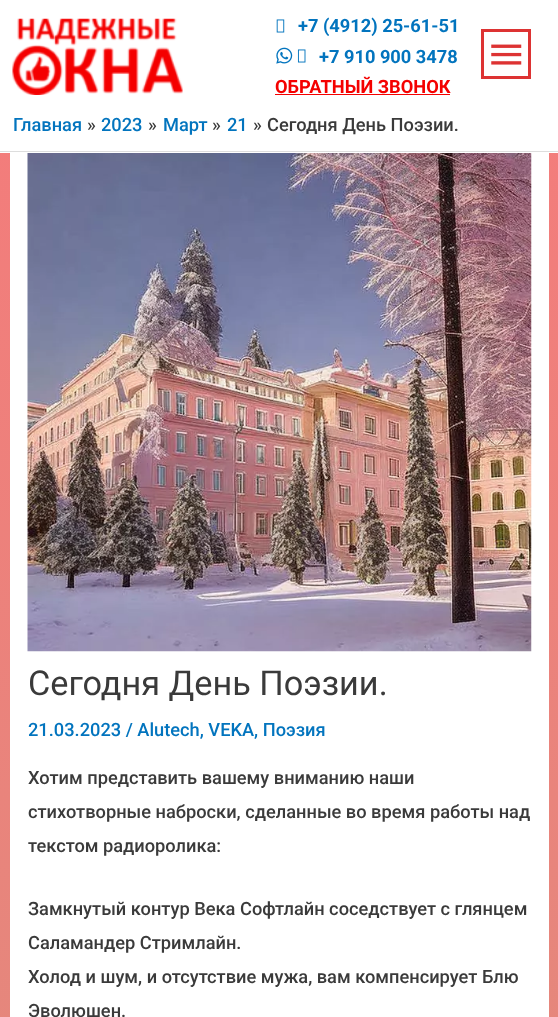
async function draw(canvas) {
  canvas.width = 558
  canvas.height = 1017
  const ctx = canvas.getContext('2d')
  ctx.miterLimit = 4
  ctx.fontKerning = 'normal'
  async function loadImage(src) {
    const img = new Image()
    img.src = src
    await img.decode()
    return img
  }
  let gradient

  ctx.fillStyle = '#fff'
  ctx.fillRect(0, 0, 558, 1017)
  ctx.fillStyle = '#ddd'
  ctx.fillRect(0, 151, 558, 1)
  ctx.drawImage(await loadImage('image0.png'), 12, 18, 171, 77)
  ctx.drawImage(await loadImage('image1.png'), 276, 19, 9, 14)
  ctx.font = 'bold 18.25px Roboto'
  ctx.fillStyle = '#0274be'
  ctx.fillText('+7 (4912) 25-61-51', 298, 32)
  ctx.drawImage(await loadImage('image2.png'), 276, 47, 17, 17)
  ctx.drawImage(await loadImage('image3.png'), 297, 49, 9, 14)
  ctx.fillText('+7 910 900 3478', 319, 63)
  ctx.fillStyle = '#f40100'
  ctx.fillText('ОБРАТНЫЙ ЗВОНОК', 275, 93)
  ctx.fillRect(275, 94, 175, 1)
  ctx.strokeStyle = '#d33'
  ctx.lineWidth = 3
  ctx.strokeRect(482.5, 30.5, 47, 47)
  ctx.drawImage(await loadImage('image4.png'), 491, 44, 31, 21)
  ctx.font = '500 18.25px Roboto'
  ctx.fillStyle = '#0274be'
  ctx.fillText('Главная', 13, 131)
  ctx.fillStyle = '#3a3a3a'
  ctx.fillText('»', 87, 131)
  ctx.fillStyle = '#0274be'
  ctx.fillText('2023', 101, 131)
  ctx.fillStyle = '#3a3a3a'
  ctx.fillText('»', 148, 131)
  ctx.fillStyle = '#0274be'
  ctx.fillText('Март', 163, 131)
  ctx.fillStyle = '#3a3a3a'
  ctx.fillText('»', 212, 131)
  ctx.fillStyle = '#0274be'
  ctx.fillText('21', 227, 131)
  ctx.fillStyle = '#3a3a3a'
  ctx.fillText('»', 253, 131)
  ctx.fillText('Сегодня День Поэзии.', 267, 131)
  gradient = ctx.createLinearGradient(279, 0, 279, 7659)
  gradient.addColorStop(0, '#f57b7b')
  gradient.addColorStop(1, '#82d284')
  ctx.fillStyle = gradient
  ctx.fillRect(0, 153, 558, 864)
  ctx.fillStyle = '#fff'
  ctx.fillRect(10, 153, 539, 864)
  ctx.drawImage(await loadImage('image5.png'), 27, 153, 505, 499)
  ctx.font = '34.25px Roboto'
  ctx.fillStyle = '#3a3a3a'
  ctx.fillText('Сегодня День Поэзии.', 28, 695)
  ctx.font = '500 18.25px Roboto'
  ctx.fillStyle = '#0274be'
  ctx.fillText('21.03.2023 / Alutech, VEKA, Поэзия', 28, 736)
  ctx.fillStyle = '#3a3a3a'
  ctx.fillText('Хотим представить вашему вниманию наши', 28, 784)
  ctx.fillText('стихотворные наброски, сделанные во время работы над', 28, 818)
  ctx.fillText('текстом радиоролика:', 28, 852)
  ctx.fillText('Замкнутый контур Века Софтлайн соседствует с глянцем', 28, 915)
  ctx.fillText('Саламандер Стримлайн.', 28, 949)
  ctx.fillText('Холод и шум, и отсутствие мужа, вам компенсирует Блю', 28, 983)
  ctx.fillText('Эволюшен.', 28, 1017)
}

draw(document.querySelector('canvas'))
